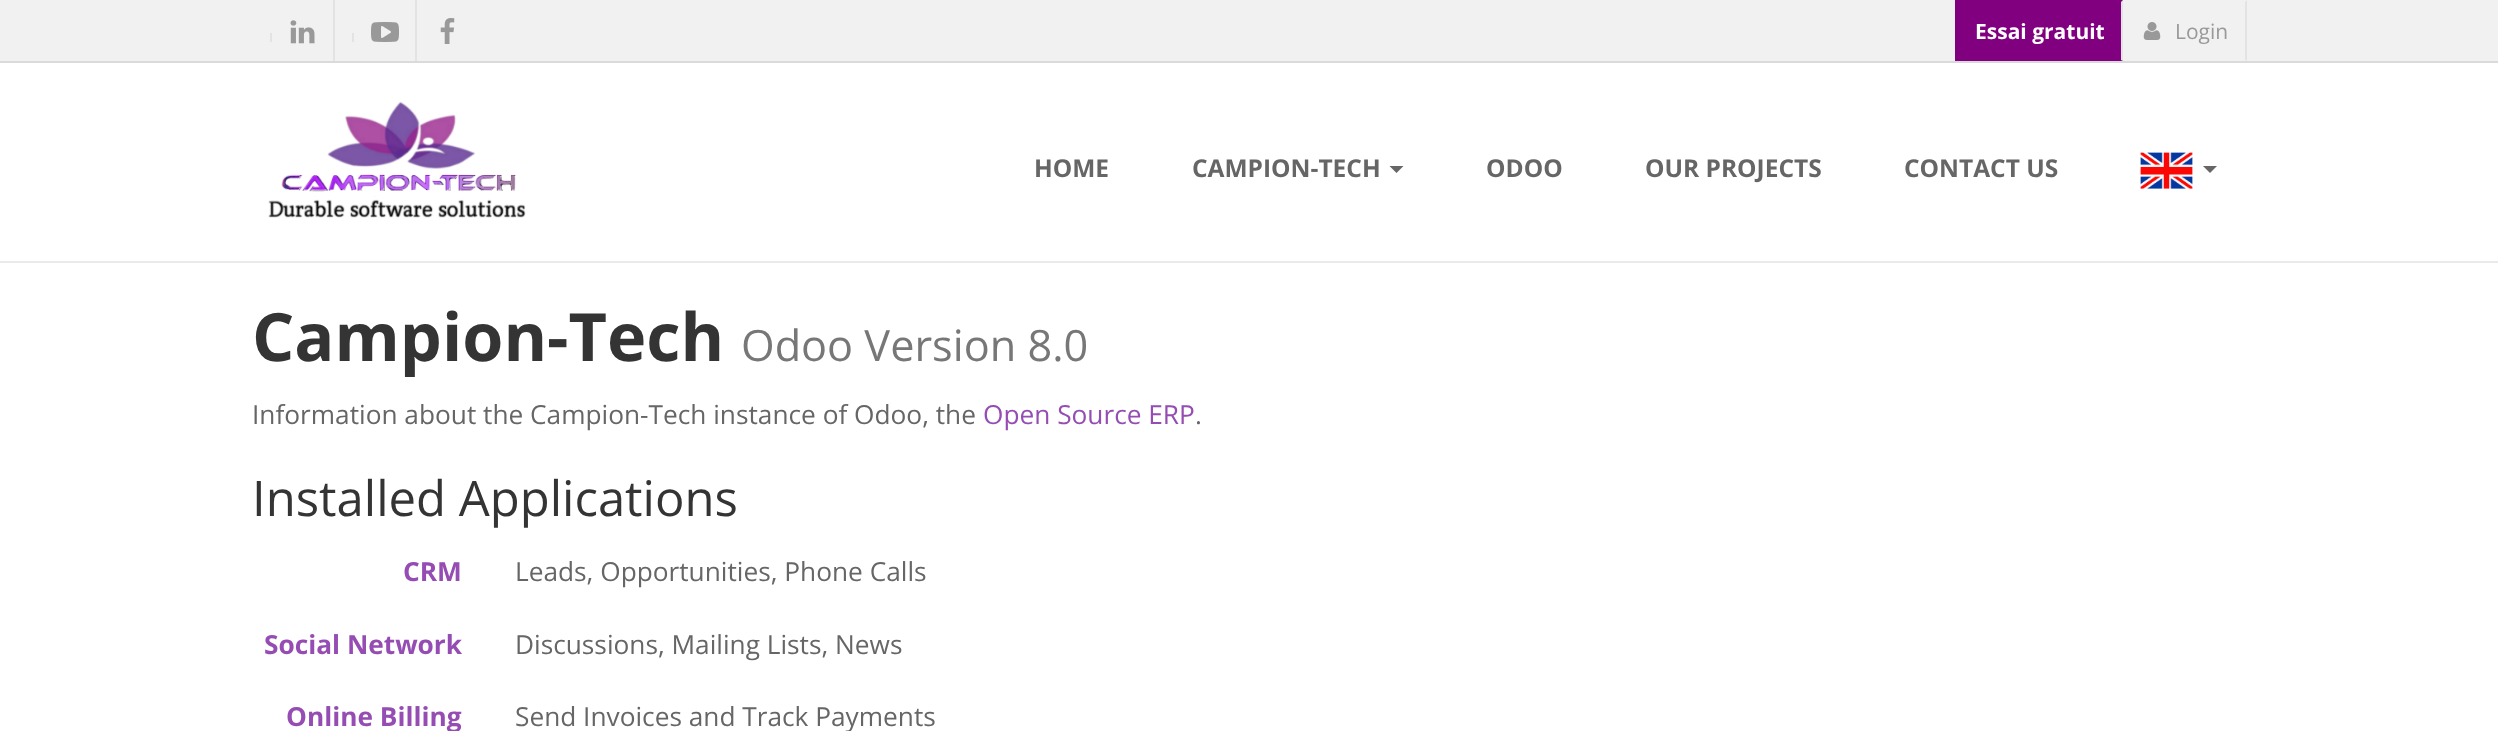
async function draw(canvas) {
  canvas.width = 2498
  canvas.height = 731
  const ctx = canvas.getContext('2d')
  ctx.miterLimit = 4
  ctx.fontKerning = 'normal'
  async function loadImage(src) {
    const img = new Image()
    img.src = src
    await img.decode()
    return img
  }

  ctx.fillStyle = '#fff'
  ctx.fillRect(0, 0, 2498, 731)
  ctx.fillStyle = '#f1f1f1'
  ctx.fillRect(0, 0, 2498, 61)
  ctx.fillStyle = '#dadada'
  ctx.fillRect(0, 61, 2498, 2)
  ctx.fillStyle = '#e3e3e3'
  ctx.fillRect(270, 33, 2, 9)
  ctx.fillRect(333, 0, 2, 61)
  ctx.drawImage(await loadImage('image0.png'), 290, 20, 25, 24)
  ctx.fillRect(352, 33, 2, 9)
  ctx.fillRect(415, 0, 2, 61)
  ctx.drawImage(await loadImage('image1.png'), 371, 22, 28, 20)
  ctx.drawImage(await loadImage('image2.png'), 440, 18, 15, 26)
  ctx.fillStyle = '#800080'
  ctx.fillRect(1955, 0, 168, 61)
  ctx.fillStyle = '#e3e3e3'
  ctx.beginPath()
  ctx.moveTo(2123, 0)
  ctx.lineTo(2123, 61)
  ctx.lineTo(2121, 60)
  ctx.lineTo(2121, 2)
  ctx.closePath()
  ctx.fill()
  ctx.font = 'bold 21px Open Sans'
  ctx.fillStyle = '#fff'
  ctx.fillText('Essai gratuit', 1975, 39)
  ctx.fillStyle = '#e3e3e3'
  ctx.beginPath()
  ctx.moveTo(2247, 0)
  ctx.lineTo(2247, 61)
  ctx.lineTo(2245, 60)
  ctx.lineTo(2245, 2)
  ctx.closePath()
  ctx.fill()
  ctx.drawImage(await loadImage('image3.png'), 2143, 22, 18, 18)
  ctx.font = '21px Open Sans'
  ctx.fillStyle = '#999'
  ctx.fillText('Login', 2175, 39)
  ctx.fillStyle = '#eaeaea'
  ctx.fillRect(0, 261, 2498, 2)
  ctx.drawImage(await loadImage('image4.png'), 268, 101, 258, 117)
  ctx.font = 'bold 24.5px Open Sans'
  ctx.fillStyle = '#666'
  ctx.fillText('HOME', 1034, 177)
  ctx.fillText('CAMPION-TECH', 1192, 177)
  ctx.beginPath()
  ctx.moveTo(1389.5, 166)
  ctx.lineTo(1403.5, 166)
  ctx.lineTo(1396.5, 173)
  ctx.closePath()
  ctx.fill()
  ctx.fillText('ODOO', 1486, 177)
  ctx.fillText('OUR PROJECTS', 1645, 177)
  ctx.fillText('CONTACT US', 1904, 177)
  ctx.drawImage(await loadImage('image5.png'), 2140, 152, 53, 37)
  ctx.beginPath()
  ctx.moveTo(2203, 166)
  ctx.lineTo(2217, 166)
  ctx.lineTo(2210, 173)
  ctx.closePath()
  ctx.fill()
  ctx.font = 'bold 66.5px Open Sans'
  ctx.fillStyle = '#343434'
  ctx.fillText('Campion-Tech', 252, 361)
  ctx.font = '43.25px Open Sans'
  ctx.fillStyle = '#777'
  ctx.fillText('Odoo Version 8.0', 741, 361)
  ctx.font = '26.25px Open Sans'
  ctx.fillStyle = '#666'
  ctx.fillText('Information about the Campion-Tech instance of Odoo, the', 252, 424)
  ctx.fillStyle = '#954db3'
  ctx.fillText('Open Source ERP', 983, 424)
  ctx.fillStyle = '#666'
  ctx.fillText('.', 1195, 424)
  ctx.font = '49px Open Sans'
  ctx.fillStyle = '#343434'
  ctx.fillText('Installed Applications', 252, 516)
  ctx.font = 'bold 26.25px Open Sans'
  ctx.fillStyle = '#954db3'
  ctx.fillText('CRM', 403, 581)
  ctx.font = '26.25px Open Sans'
  ctx.fillStyle = '#666'
  ctx.fillText('Leads, Opportunities, Phone Calls', 515, 581)
  ctx.font = 'bold 26.25px Open Sans'
  ctx.fillStyle = '#954db3'
  ctx.fillText('Social Network', 264, 654)
  ctx.font = '26.25px Open Sans'
  ctx.fillStyle = '#666'
  ctx.fillText('Discussions, Mailing Lists, News', 515, 654)
  ctx.font = 'bold 26.25px Open Sans'
  ctx.fillStyle = '#954db3'
  ctx.fillText('Online Billing', 286, 726)
  ctx.font = '26.25px Open Sans'
  ctx.fillStyle = '#666'
  ctx.fillText('Send Invoices and Track Payments', 515, 726)
}

draw(document.querySelector('canvas'))
